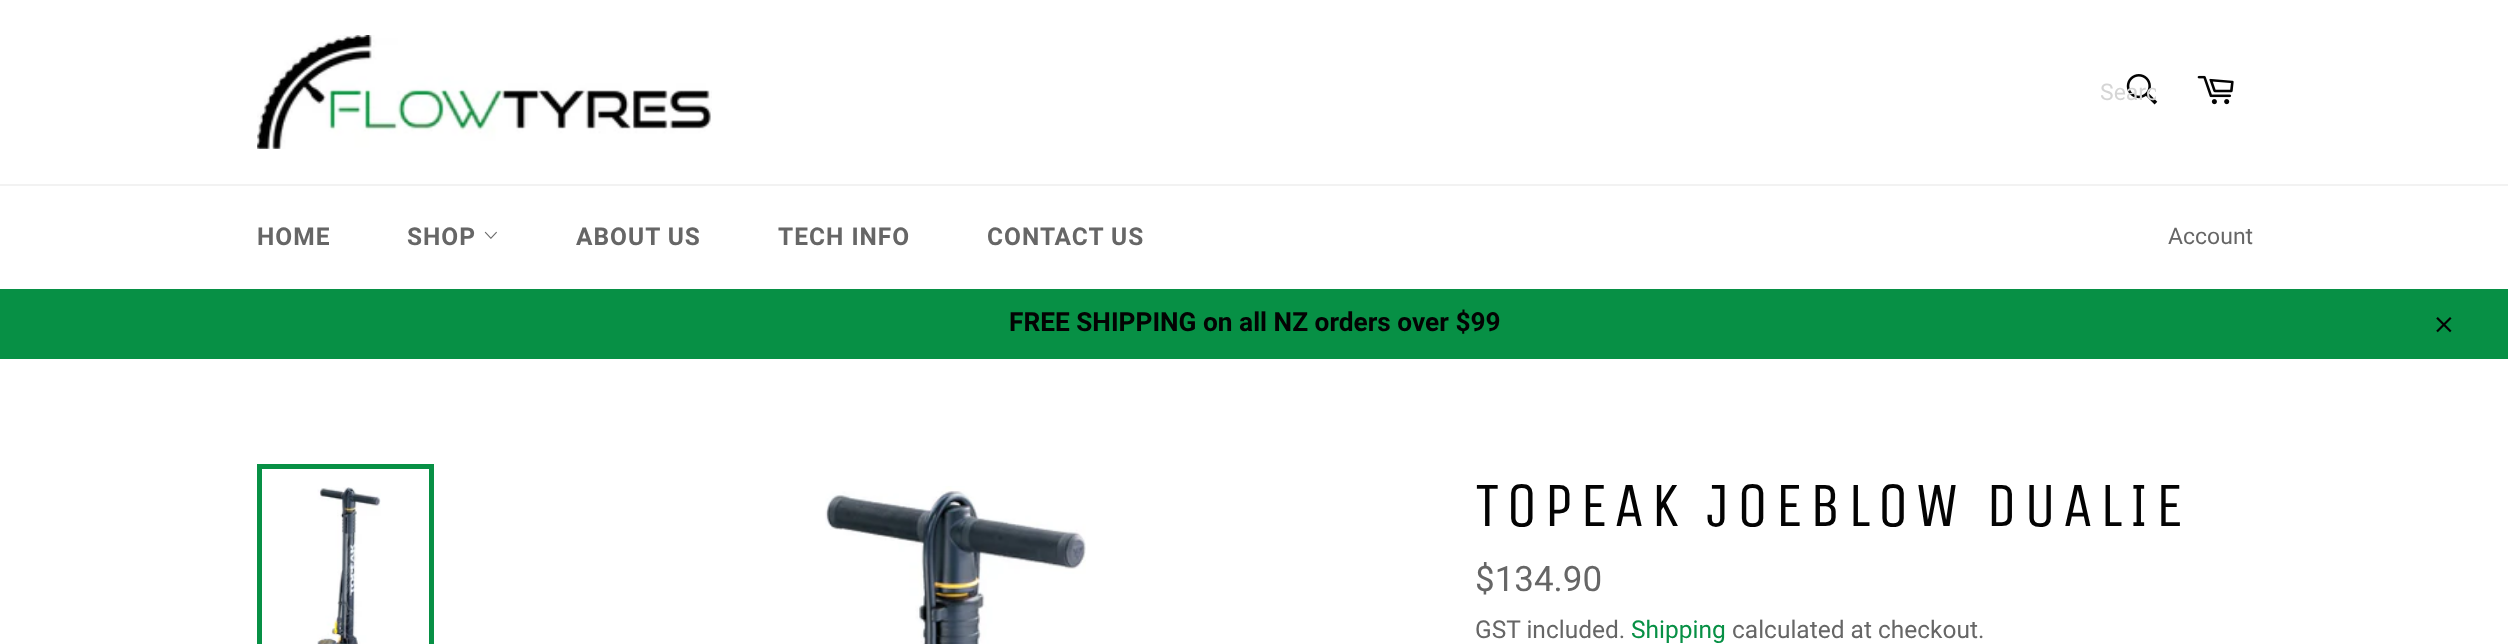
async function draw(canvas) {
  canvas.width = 2508
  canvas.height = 644
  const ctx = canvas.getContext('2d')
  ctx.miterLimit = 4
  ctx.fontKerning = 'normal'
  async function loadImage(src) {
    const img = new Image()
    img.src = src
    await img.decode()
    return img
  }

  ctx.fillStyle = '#fff'
  ctx.fillRect(0, 0, 2508, 644)
  ctx.drawImage(await loadImage('image0.png'), 257, 35, 455, 114)
  ctx.drawImage(await loadImage('image1.png'), 2126, 74, 32, 31)
  ctx.save()
  ctx.beginPath()
  ctx.rect(2100, 79, 56, 26)
  ctx.clip()
  ctx.font = '23px Roboto'
  ctx.fillStyle = '#d5d5d5'
  ctx.fillText('Searc', 2100, 100)
  ctx.restore()
  ctx.drawImage(await loadImage('image2.png'), 2197, 75, 37, 30)
  ctx.fillStyle = '#f2f2f2'
  ctx.fillRect(0, 184, 2508, 2)
  ctx.letterSpacing = '1px'
  ctx.font = 'bold 24.5px Roboto'
  ctx.fillStyle = '#666'
  ctx.fillText('HOME', 257, 245)
  ctx.fillText('SHOP', 407, 245)
  ctx.drawImage(await loadImage('image3.png'), 484, 231, 13, 8)
  ctx.fillText('ABOUT US', 576, 245)
  ctx.fillText('TECH INFO', 778, 245)
  ctx.fillText('CONTACT US', 987, 245)
  ctx.letterSpacing = '0px'
  ctx.font = '23px Roboto'
  ctx.fillText('Account', 2168, 244)
  ctx.fillStyle = '#079045'
  ctx.fillRect(0, 289, 2508, 70)
  ctx.font = 'bold 26.25px Roboto'
  ctx.fillStyle = '#030303'
  ctx.fillText('FREE SHIPPING on all NZ orders over $99', 1009, 331)
  ctx.drawImage(await loadImage('image4.png'), 2436, 317, 16, 16)
  ctx.drawImage(await loadImage('image5.png'), 317, 487, 64, 157)
  ctx.strokeStyle = '#079045'
  ctx.lineWidth = 5
  ctx.strokeRect(259.5, 466.5, 172, 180)
  ctx.drawImage(await loadImage('image6.png'), 825, 486, 261, 158)
  ctx.letterSpacing = '6.3px'
  ctx.font = '63px Unica One'
  ctx.fillText('TOPEAK JOEBLOW DUALIE', 1475, 526)
  ctx.letterSpacing = '0px'
  ctx.font = '35px Roboto'
  ctx.fillStyle = '#666'
  ctx.fillText('$134.90', 1475, 591)
  ctx.font = '24.5px Roboto'
  ctx.fillText('GST included.', 1475, 638)
  ctx.fillStyle = '#079045'
  ctx.fillText('Shipping', 1631, 638)
  ctx.fillStyle = '#666'
  ctx.fillText('calculated at checkout.', 1732, 638)
}

draw(document.querySelector('canvas'))
